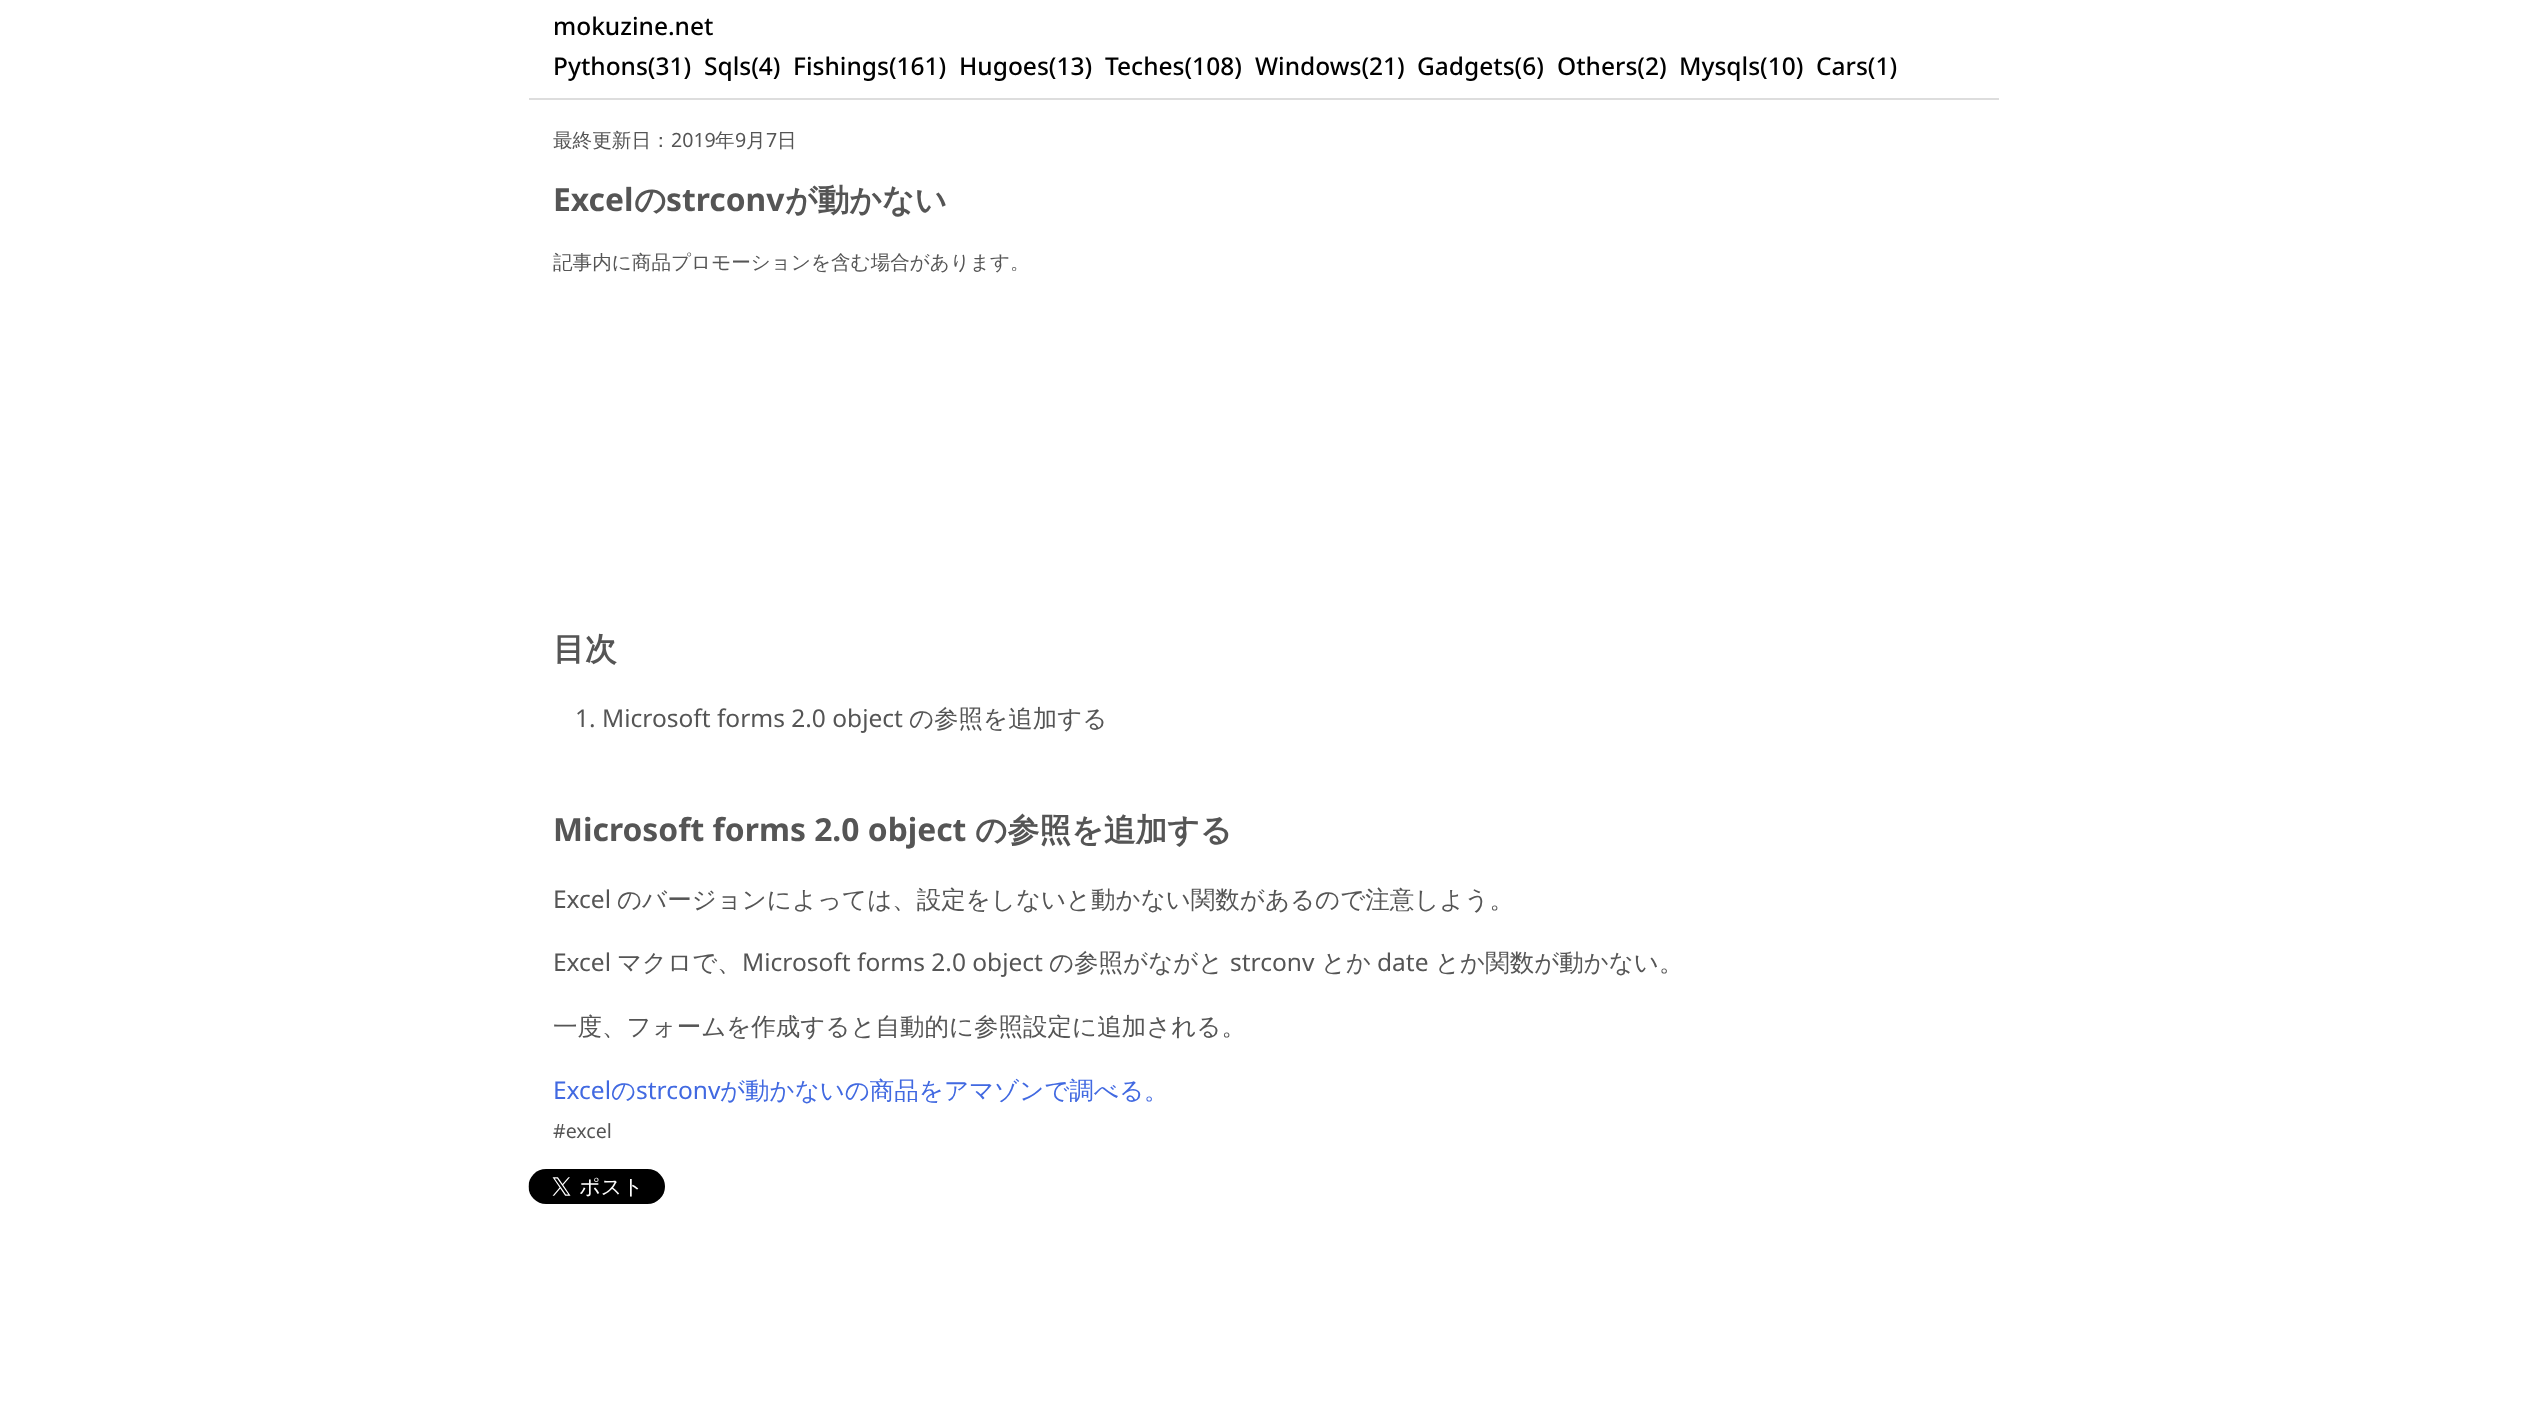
async function draw(canvas) {
  canvas.width = 2527
  canvas.height = 1425
  const ctx = canvas.getContext('2d')
  ctx.miterLimit = 4
  ctx.fontKerning = 'normal'
  async function loadImage(src) {
    const img = new Image()
    img.src = src
    await img.decode()
    return img
  }

  ctx.fillStyle = '#fff'
  ctx.fillRect(0, 0, 2527, 1425)
  ctx.font = '500 24.5px Noto Sans'
  ctx.fillStyle = '#000'
  ctx.fillText('mokuzine.net', 553, 35)
  ctx.fillText('Pythons(31)', 553, 75)
  ctx.fillText('Sqls(4)', 704, 75)
  ctx.fillText('Fishings(161)', 793, 75)
  ctx.fillText('Hugoes(13)', 959, 75)
  ctx.fillText('Teches(108)', 1105, 75)
  ctx.fillText('Windows(21)', 1255, 75)
  ctx.fillText('Gadgets(6)', 1417, 75)
  ctx.fillText('Others(2)', 1557, 75)
  ctx.fillText('Mysqls(10)', 1679, 75)
  ctx.fillText('Cars(1)', 1816, 75)
  ctx.fillStyle = '#ddd'
  ctx.fillRect(529, 98, 1470, 2)
  ctx.font = '500 19.6px WenQuanYi Zen Hei'
  ctx.fillStyle = '#555'
  ctx.fillText('最終更新日：', 553, 147)
  ctx.font = '19.6px Noto Sans'
  ctx.fillText('2019', 671, 147)
  ctx.font = '500 19.6px WenQuanYi Zen Hei'
  ctx.fillText('年', 715, 147)
  ctx.font = '19.6px Noto Sans'
  ctx.fillText('9', 735, 147)
  ctx.font = '500 19.6px WenQuanYi Zen Hei'
  ctx.fillText('月', 746, 147)
  ctx.font = '19.6px Noto Sans'
  ctx.fillText('7', 766, 147)
  ctx.font = '500 19.6px WenQuanYi Zen Hei'
  ctx.fillText('日', 777, 147)
  ctx.font = 'bold 31.8px Noto Sans'
  ctx.fillText('Excel', 553, 211)
  ctx.font = 'bold 31.8px WenQuanYi Zen Hei'
  ctx.fillText('の', 634, 211)
  ctx.font = 'bold 31.8px Noto Sans'
  ctx.fillText('strconv', 666, 211)
  ctx.font = 'bold 31.8px WenQuanYi Zen Hei'
  ctx.fillText('が動かない', 785, 211)
  ctx.font = '500 19.6px WenQuanYi Zen Hei'
  ctx.fillText('記事内に商品プロモーションを含む場合があります。', 553, 269)
  ctx.font = 'bold 31.8px WenQuanYi Zen Hei'
  ctx.fillText('目次', 553, 660)
  ctx.font = '24.5px Noto Sans'
  ctx.fillText('1. Microsoft forms 2.0 object', 575, 727)
  ctx.font = '500 24.5px WenQuanYi Zen Hei'
  ctx.fillText('の参照を追加する', 909, 727)
  ctx.font = 'bold 31.8px Noto Sans'
  ctx.fillText('Microsoft forms 2.0 object', 553, 841)
  ctx.font = 'bold 31.8px WenQuanYi Zen Hei'
  ctx.fillText('の参照を追加する', 975, 841)
  ctx.font = '24.5px Noto Sans'
  ctx.fillText('Excel', 553, 908)
  ctx.font = '500 24.5px WenQuanYi Zen Hei'
  ctx.fillText('のバージョンによっては、設定をしないと動かない関数があるので注意しよう。', 617, 908)
  ctx.font = '24.5px Noto Sans'
  ctx.fillText('Excel', 553, 971)
  ctx.font = '500 24.5px WenQuanYi Zen Hei'
  ctx.fillText('マクロで、', 617, 971)
  ctx.font = '24.5px Noto Sans'
  ctx.fillText('Microsoft forms 2.0 object', 742, 971)
  ctx.font = '500 24.5px WenQuanYi Zen Hei'
  ctx.fillText('の参照がながと', 1049, 971)
  ctx.font = '24.5px Noto Sans'
  ctx.fillText('strconv', 1230, 971)
  ctx.font = '500 24.5px WenQuanYi Zen Hei'
  ctx.fillText('とか', 1321, 971)
  ctx.font = '24.5px Noto Sans'
  ctx.fillText('date', 1377, 971)
  ctx.font = '500 24.5px WenQuanYi Zen Hei'
  ctx.fillText('とか関数が動かない。', 1435, 971)
  ctx.fillText('一度、フォームを作成すると自動的に参照設定に追加される。', 553, 1035)
  ctx.font = '24.5px Noto Sans'
  ctx.fillStyle = '#4169e1'
  ctx.fillText('Excel', 553, 1099)
  ctx.font = '500 24.5px WenQuanYi Zen Hei'
  ctx.fillText('の', 611, 1099)
  ctx.font = '24.5px Noto Sans'
  ctx.fillText('strconv', 636, 1099)
  ctx.font = '500 24.5px WenQuanYi Zen Hei'
  ctx.fillText('が動かないの商品をアマゾンで調べる。', 720, 1099)
  ctx.font = '19.6px Noto Sans'
  ctx.fillStyle = '#555'
  ctx.fillText('#excel', 553, 1138)
  ctx.drawImage(await loadImage('image0.png'), 528, 1169, 137, 35)
}

draw(document.querySelector('canvas'))
